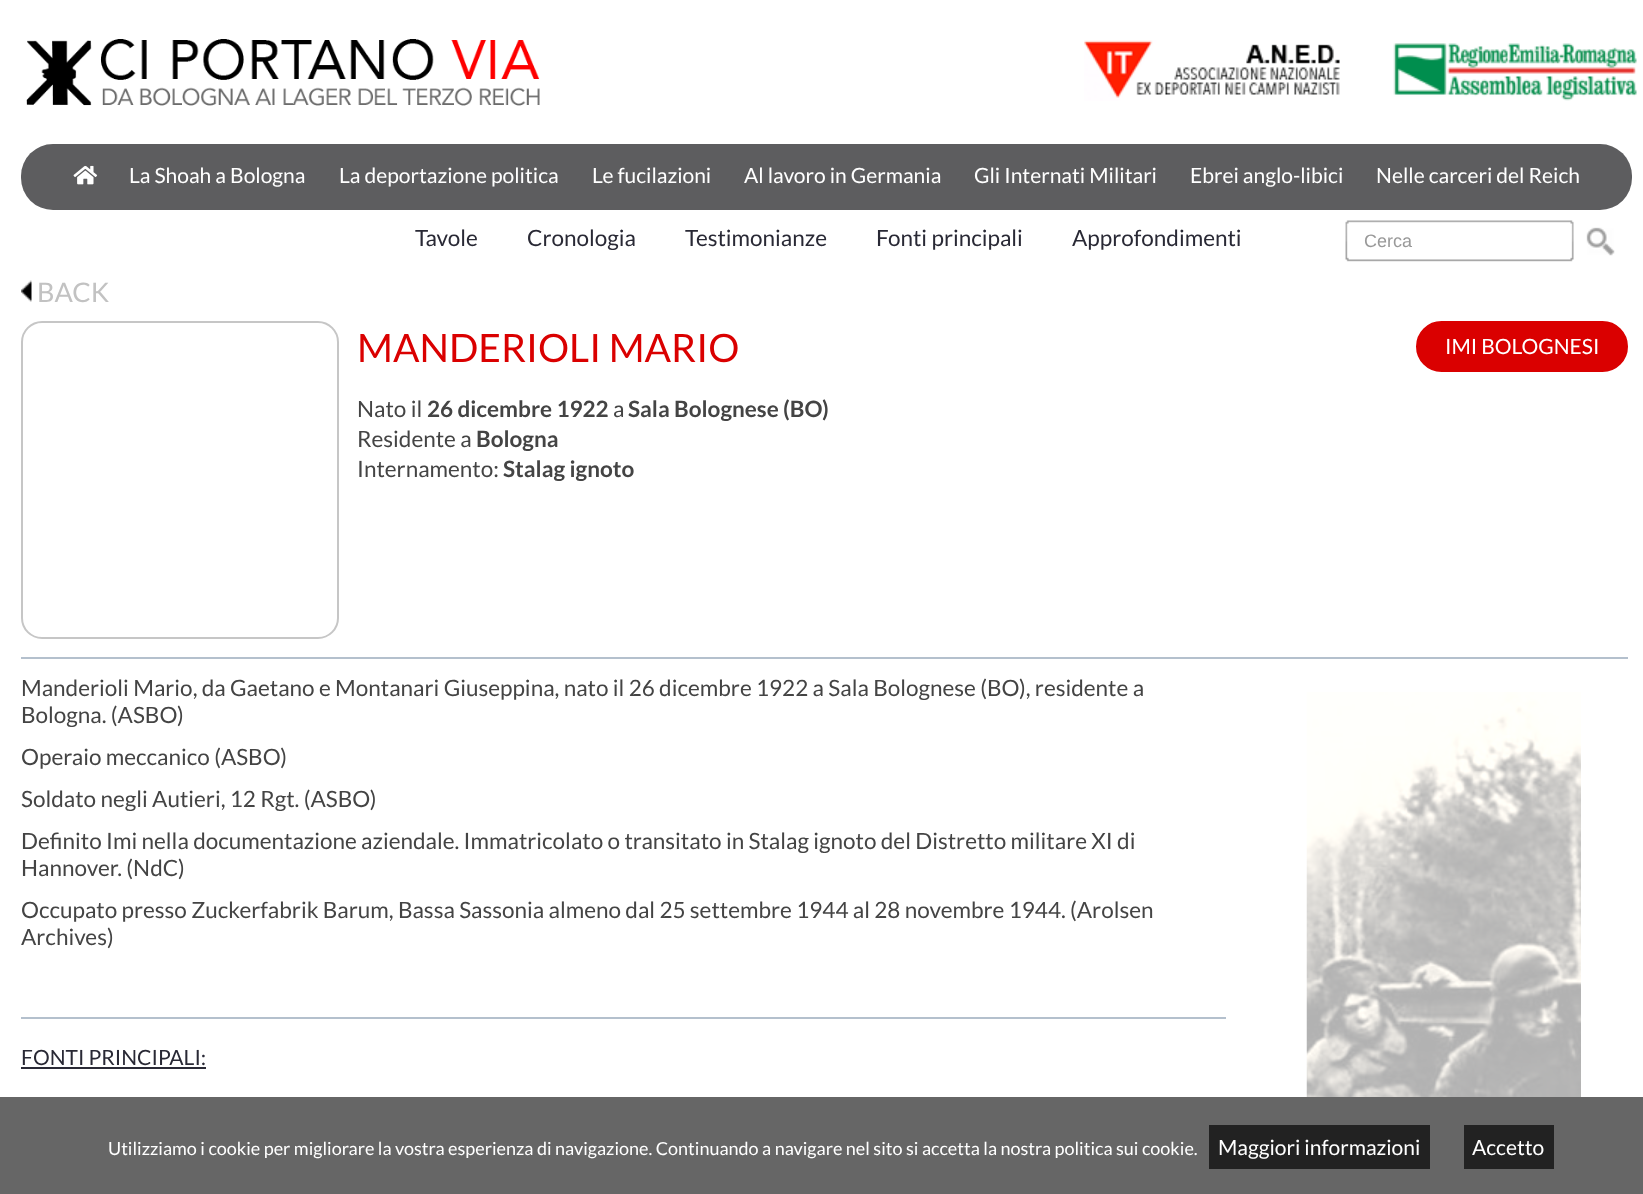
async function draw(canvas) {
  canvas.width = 1643
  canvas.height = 1194
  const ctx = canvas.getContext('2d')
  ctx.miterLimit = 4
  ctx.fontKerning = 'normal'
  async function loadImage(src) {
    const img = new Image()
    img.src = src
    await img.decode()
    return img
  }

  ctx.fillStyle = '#fff'
  ctx.fillRect(0, 0, 1643, 1194)
  ctx.drawImage(await loadImage('image0.png'), 1084, 40, 553, 61)
  ctx.fillStyle = '#5d5d5f'
  ctx.beginPath()
  ctx.roundRect(21, 144, 1611, 66, 32)
  ctx.fill()
  ctx.drawImage(await loadImage('image1.png'), 73, 165, 25, 20)
  ctx.font = '21px Lato'
  ctx.fillStyle = '#fff'
  ctx.fillText('La Shoah a Bologna', 129, 183)
  ctx.fillText('La deportazione politica', 339, 183)
  ctx.fillText('Le fucilazioni', 592, 183)
  ctx.fillText('Al lavoro in Germania', 744, 183)
  ctx.fillText('Gli Internati Militari', 974, 183)
  ctx.fillText('Ebrei anglo-libici', 1190, 183)
  ctx.fillText('Nelle carceri del Reich', 1376, 183)
  ctx.font = '22.5px Lato'
  ctx.fillStyle = '#292935'
  ctx.fillText('Tavole', 415, 246)
  ctx.fillText('Cronologia', 527, 246)
  ctx.fillText('Testimonianze', 685, 246)
  ctx.fillText('Fonti principali', 876, 246)
  ctx.fillText('Approfondimenti', 1072, 246)
  ctx.drawImage(await loadImage('image2.png'), 26, 39, 514, 67)
  ctx.drawImage(await loadImage('image3.png'), 1345, 220, 270, 42)
  ctx.font = '18px Liberation Sans'
  ctx.fillStyle = '#999'
  ctx.fillText('Cerca', 1364, 247)
  ctx.drawImage(await loadImage('image4.png'), 21, 280, 11, 22)
  ctx.font = '27px Lato'
  ctx.fillStyle = '#c2c2c2'
  ctx.fillText('BACK', 37, 302)
  ctx.beginPath()
  ctx.roundRect(22, 322, 316, 316, 20)
  ctx.strokeStyle = '#c6c6c6'
  ctx.lineWidth = 2
  ctx.stroke()
  ctx.font = '39px Lato'
  ctx.fillStyle = '#da0000'
  ctx.fillText('MANDERIOLI MARIO', 357, 362)
  ctx.font = '22.5px Lato'
  ctx.fillStyle = '#444'
  ctx.fillText('Nato il', 357, 417)
  ctx.font = 'bold 22.5px Lato'
  ctx.fillText('26 dicembre 1922', 427, 417)
  ctx.font = '22.5px Lato'
  ctx.fillText('a', 613, 417)
  ctx.font = 'bold 22.5px Lato'
  ctx.fillText('Sala Bolognese (BO)', 628, 417)
  ctx.font = '22.5px Lato'
  ctx.fillText('Residente a', 357, 447)
  ctx.font = 'bold 22.5px Lato'
  ctx.fillText('Bologna', 476, 447)
  ctx.font = '22.5px Lato'
  ctx.fillText('Internamento:', 357, 477)
  ctx.font = 'bold 22.5px Lato'
  ctx.fillText('Stalag ignoto', 503, 477)
  ctx.fillStyle = '#da0000'
  ctx.beginPath()
  ctx.roundRect(1417, 322, 210, 49, 24.5)
  ctx.fill()
  ctx.strokeStyle = '#da0000'
  ctx.stroke()
  ctx.font = '21px Lato'
  ctx.fillStyle = '#fff'
  ctx.fillText('IMI BOLOGNESI', 1445, 354)
  ctx.fillStyle = '#b4c0cd'
  ctx.fillRect(21, 657, 1607, 2)
  ctx.font = '22.5px Lato'
  ctx.fillStyle = '#444'
  ctx.fillText('Manderioli Mario, da Gaetano e Montanari Giuseppina, nato il 26 dicembre 1922 a Sala Bolognese (BO), residente a', 21, 696)
  ctx.fillText('Bologna. (ASBO)', 21, 723)
  ctx.fillText('Operaio meccanico (ASBO)', 21, 765)
  ctx.fillText('Soldato negli Autieri, 12 Rgt. (ASBO)', 21, 807)
  ctx.fillText('Definito Imi nella documentazione aziendale. Immatricolato o transitato in Stalag ignoto del Distretto militare XI di', 21, 849)
  ctx.fillText('Hannover. (NdC)', 21, 876)
  ctx.fillText('Occupato presso Zuckerfabrik Barum, Bassa Sassonia almeno dal 25 settembre 1944 al 28 novembre 1944. (Arolsen', 21, 918)
  ctx.fillText('Archives)', 21, 945)
  ctx.fillStyle = '#b4c0cd'
  ctx.fillRect(21, 1017, 1205, 2)
  ctx.font = '21px Lato'
  ctx.fillStyle = '#292935'
  ctx.fillText('FONTI PRINCIPALI:', 21, 1065)
  ctx.fillRect(21, 1067, 185, 2)
  ctx.drawImage(await loadImage('image5.png'), 1306, 692, 275, 405)
  ctx.fillStyle = '#666'
  ctx.fillRect(0, 1097, 1643, 97)
  ctx.font = '18px Lato'
  ctx.fillStyle = '#fff'
  ctx.fillText('Utilizziamo i cookie per migliorare la vostra esperienza di navigazione. Continuando a navigare nel sito si accetta la nostra politica sui cookie.', 108, 1155)
  ctx.fillStyle = '#222'
  ctx.fillRect(1209, 1125, 221, 44)
  ctx.font = '21px Lato'
  ctx.fillStyle = '#fff'
  ctx.fillText('Maggiori informazioni', 1218, 1155)
  ctx.fillStyle = '#222'
  ctx.fillRect(1464, 1125, 90, 44)
  ctx.fillStyle = '#fff'
  ctx.fillText('Accetto', 1472, 1155)
}

draw(document.querySelector('canvas'))
